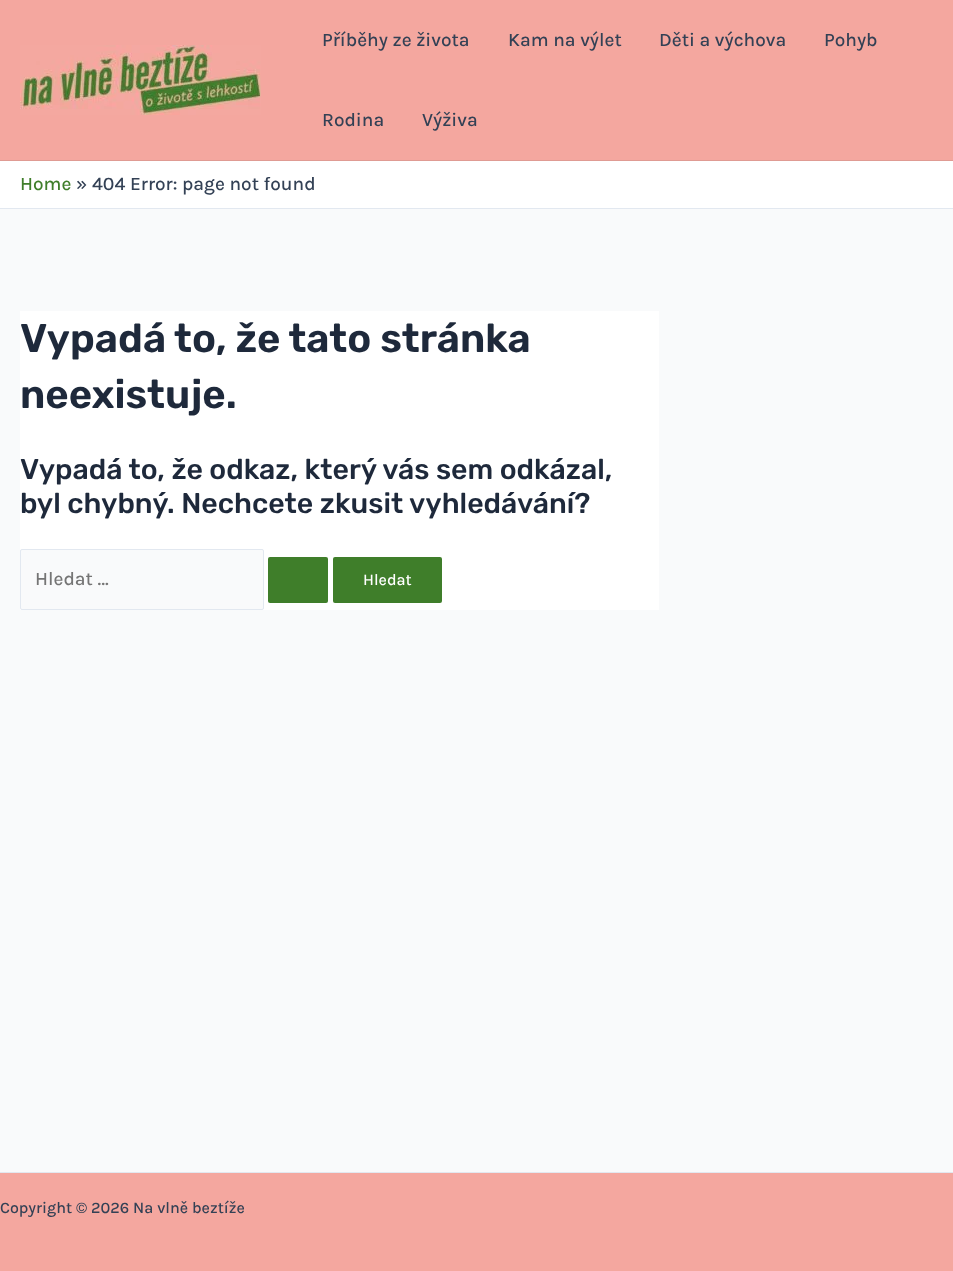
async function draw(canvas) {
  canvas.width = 953
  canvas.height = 1271
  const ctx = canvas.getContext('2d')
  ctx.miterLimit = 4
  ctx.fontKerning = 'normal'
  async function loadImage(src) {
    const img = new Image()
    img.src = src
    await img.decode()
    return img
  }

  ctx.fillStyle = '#f9fafb'
  ctx.fillRect(0, 0, 953, 1271)
  ctx.fillStyle = '#f4a79f'
  ctx.fillRect(0, 0, 953, 160)
  ctx.fillStyle = '#df9b93'
  ctx.fillRect(0, 160, 953, 1)
  ctx.drawImage(await loadImage('image0.png'), 20, 45, 241, 70)
  ctx.font = '500 19px Karla'
  ctx.fillStyle = '#334155'
  ctx.fillText('Příběhy ze života', 322, 46)
  ctx.fillText('Kam na výlet', 508, 46)
  ctx.fillText('Děti a výchova', 659, 46)
  ctx.fillText('Pohyb', 824, 46)
  ctx.fillText('Rodina', 322, 126)
  ctx.fillText('Výživa', 422, 126)
  ctx.fillStyle = '#fff'
  ctx.fillRect(0, 161, 953, 47)
  ctx.fillStyle = '#e2e8f0'
  ctx.fillRect(0, 208, 953, 1)
  ctx.fillStyle = '#3f7e2a'
  ctx.fillText('Home', 20, 190)
  ctx.fillStyle = '#334155'
  ctx.fillText('» 404 Error: page not found', 76, 190)
  ctx.fillStyle = '#fff'
  ctx.fillRect(20, 311, 639, 299)
  ctx.font = '600 40px Rubik'
  ctx.fillStyle = '#1e293b'
  ctx.fillText('Vypadá to, že tato stránka', 20, 352)
  ctx.fillText('neexistuje.', 20, 408)
  ctx.font = '500 28.5px Rubik'
  ctx.fillText('Vypadá to, že odkaz, který vás sem odkázal,', 20, 479)
  ctx.fillText('byl chybný. Nechcete zkusit vyhledávání?', 20, 513)
  ctx.fillStyle = '#f9fafb'
  ctx.beginPath()
  ctx.roundRect(20.5, 549.5, 243, 60, 1.5)
  ctx.fill()
  ctx.strokeStyle = '#e2e8f0'
  ctx.stroke()
  ctx.font = '500 19px Karla'
  ctx.fillStyle = '#757575'
  ctx.fillText('Hledat …', 35, 585)
  ctx.fillStyle = '#3f7e2a'
  ctx.beginPath()
  ctx.roundRect(268, 557, 60, 46, 2)
  ctx.fill()
  ctx.beginPath()
  ctx.roundRect(333, 557, 109, 46, 2)
  ctx.fill()
  ctx.font = '500 16px Karla'
  ctx.fillStyle = '#fff'
  ctx.fillText('Hledat', 363, 585)
  ctx.fillStyle = '#f4a79f'
  ctx.fillRect(0, 1173, 953, 98)
  ctx.fillStyle = '#e2e8f0'
  ctx.fillRect(0, 1172, 953, 1)
  ctx.fillStyle = '#334155'
  ctx.fillText('Copyright © 2026 Na vlně beztíže', 0, 1213)
}

draw(document.querySelector('canvas'))
